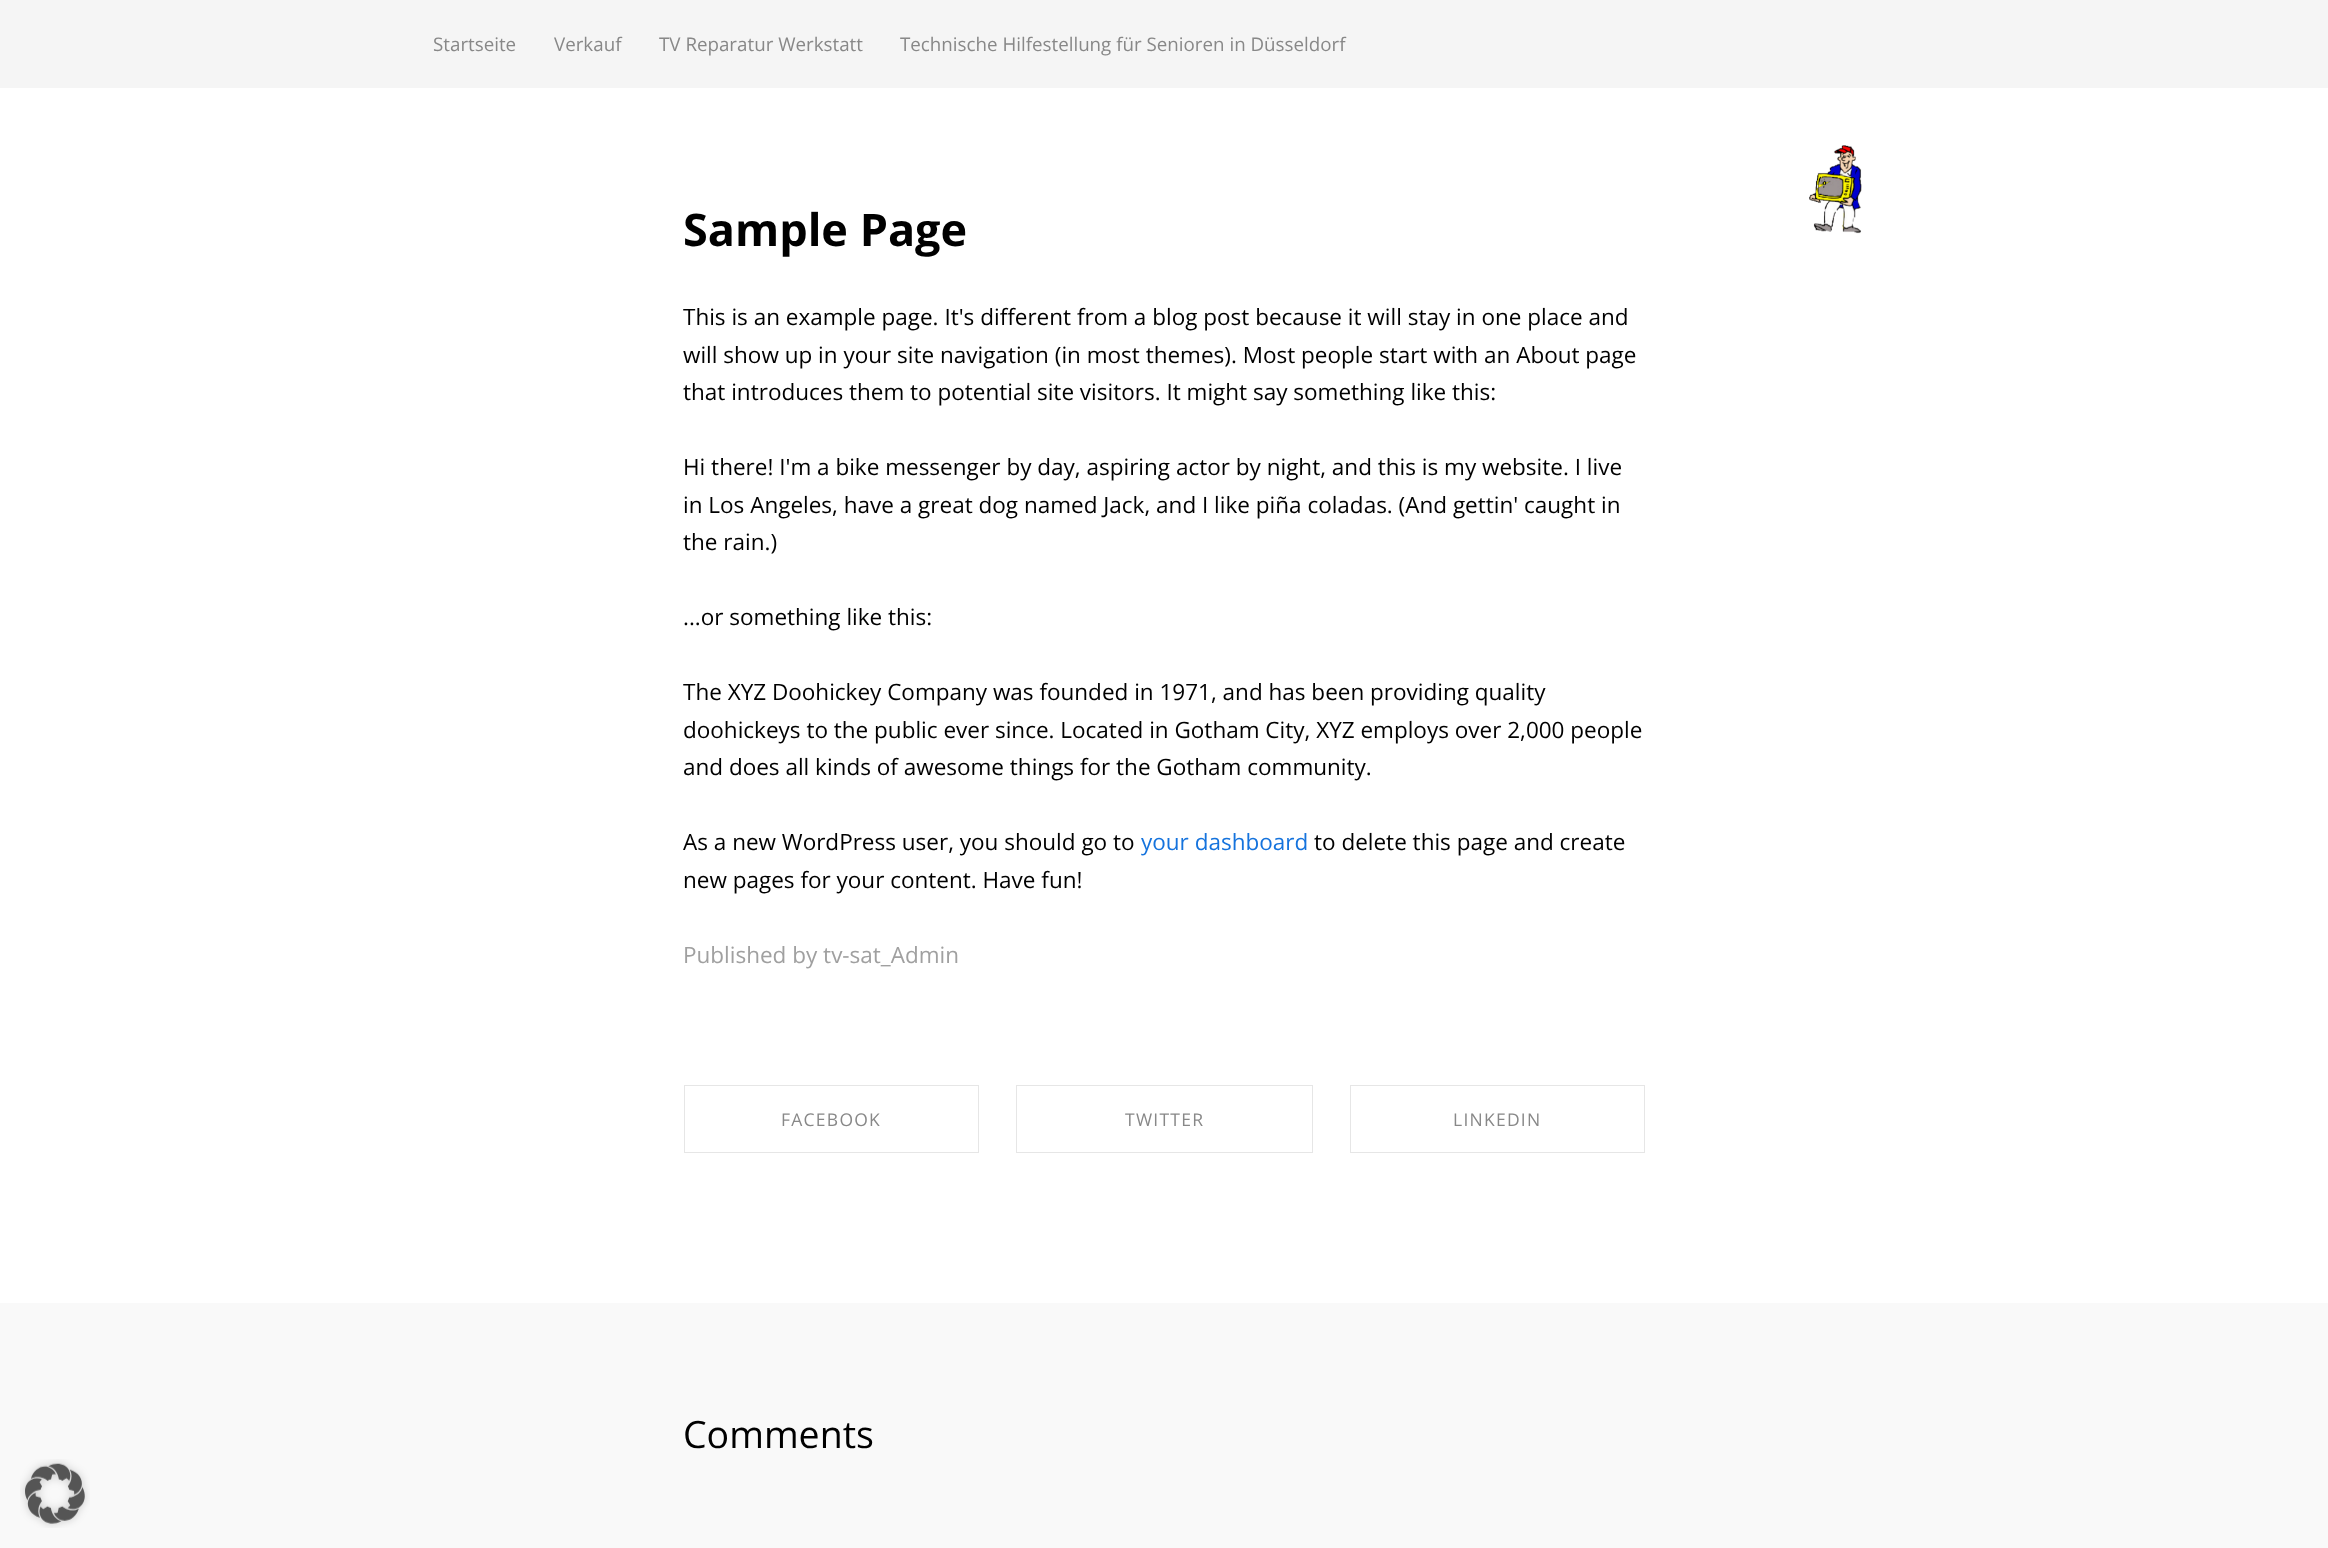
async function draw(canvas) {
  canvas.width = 2328
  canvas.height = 1548
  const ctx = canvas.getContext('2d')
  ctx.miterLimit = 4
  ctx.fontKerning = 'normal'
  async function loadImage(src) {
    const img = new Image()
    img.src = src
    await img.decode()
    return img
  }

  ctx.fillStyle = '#fff'
  ctx.fillRect(0, 0, 2328, 1548)
  ctx.fillStyle = '#f5f5f5'
  ctx.fillRect(0, 0, 2328, 88)
  ctx.font = '18.75px Open Sans'
  ctx.fillStyle = '#888'
  ctx.fillText('Startseite', 433, 51)
  ctx.fillText('Verkauf', 554, 51)
  ctx.fillText('TV Reparatur Werkstatt', 659, 51)
  ctx.fillText('Technische Hilfestellung für Senioren in Düsseldorf', 900, 51)
  ctx.drawImage(await loadImage('image0.png'), 1809, 145, 53, 89)
  ctx.font = 'bold 45px Open Sans'
  ctx.fillStyle = '#000'
  ctx.fillText('Sample Page', 683, 246)
  ctx.font = '22.5px Open Sans'
  ctx.fillText('This is an example page. It\'s different from a blog post because it will stay in one place and', 683, 325)
  ctx.fillText('will show up in your site navigation (in most themes). Most people start with an About page', 683, 363)
  ctx.fillText('that introduces them to potential site visitors. It might say something like this:', 683, 400)
  ctx.fillText('Hi there! I\'m a bike messenger by day, aspiring actor by night, and this is my website. I live', 683, 475)
  ctx.fillText('in Los Angeles, have a great dog named Jack, and I like piña coladas. (And gettin\' caught in', 683, 513)
  ctx.fillText('the rain.)', 683, 550)
  ctx.fillText('...or something like this:', 683, 625)
  ctx.fillText('The XYZ Doohickey Company was founded in 1971, and has been providing quality', 683, 700)
  ctx.fillText('doohickeys to the public ever since. Located in Gotham City, XYZ employs over 2,000 people', 683, 738)
  ctx.fillText('and does all kinds of awesome things for the Gotham community.', 683, 775)
  ctx.fillText('As a new WordPress user, you should go to', 683, 850)
  ctx.fillStyle = '#1573dd'
  ctx.fillText('your dashboard', 1141, 850)
  ctx.fillStyle = '#000'
  ctx.fillText('to delete this page and create', 1314, 850)
  ctx.fillText('new pages for your content. Have fun!', 683, 888)
  ctx.fillStyle = '#a0a0a0'
  ctx.fillText('Published by tv-sat_Admin', 683, 963)
  ctx.strokeStyle = '#e6e6e6'
  ctx.strokeRect(684.5, 1085.5, 294, 67)
  ctx.letterSpacing = '1.25px'
  ctx.font = '17.5px Open Sans'
  ctx.fillStyle = '#888'
  ctx.fillText('FACEBOOK', 781, 1126)
  ctx.strokeRect(1016.5, 1085.5, 296, 67)
  ctx.fillText('TWITTER', 1125, 1126)
  ctx.strokeRect(1350.5, 1085.5, 294, 67)
  ctx.fillText('LINKEDIN', 1453, 1126)
  ctx.fillStyle = '#f9f9f9'
  ctx.fillRect(0, 1303, 2328, 245)
  ctx.letterSpacing = '0px'
  ctx.font = '37.5px Open Sans'
  ctx.fillStyle = '#000'
  ctx.fillText('Comments', 683, 1448)
  ctx.drawImage(await loadImage('image1.png'), 20, 1459, 70, 69)
}

draw(document.querySelector('canvas'))
